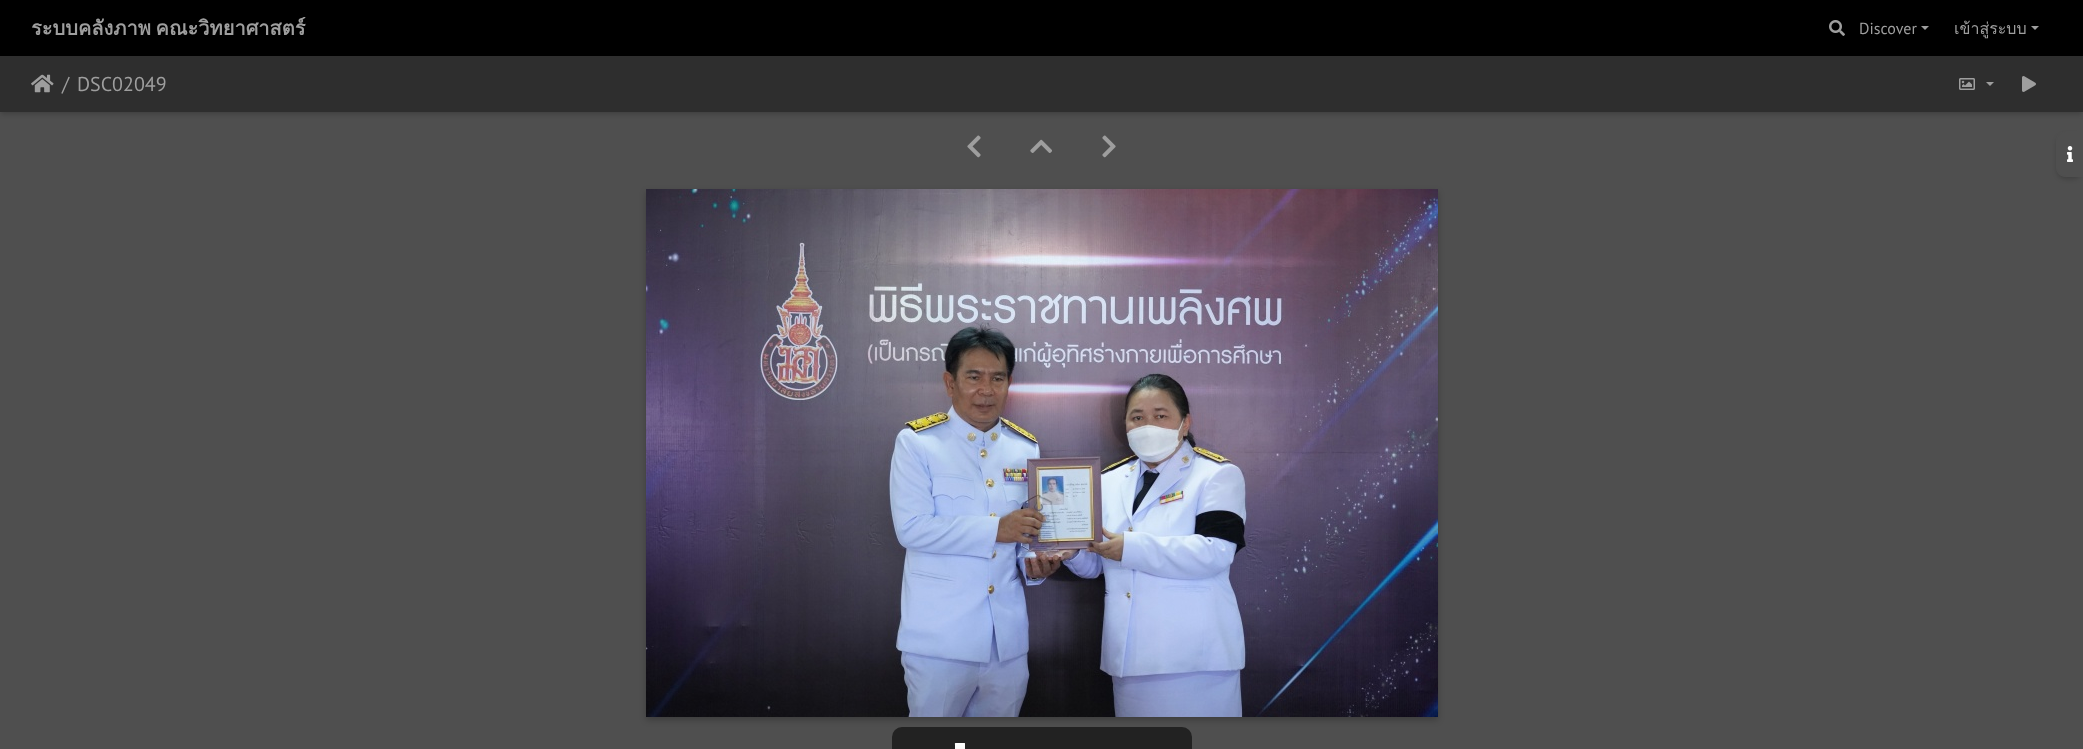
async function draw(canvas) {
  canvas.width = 2083
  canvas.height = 749
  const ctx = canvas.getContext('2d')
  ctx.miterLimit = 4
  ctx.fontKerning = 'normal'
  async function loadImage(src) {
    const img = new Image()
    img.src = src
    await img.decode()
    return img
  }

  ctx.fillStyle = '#4f4f4f'
  ctx.fillRect(0, 0, 2083, 749)
  ctx.fillStyle = '#00000033'
  ctx.filter = 'blur(2.5px)'
  ctx.beginPath()
  ctx.rect(1, 60, 2081, 54)
  ctx.fill()
  ctx.filter = 'none'
  ctx.fillStyle = '#000'
  ctx.fillRect(0, 0, 2083, 56)
  ctx.wordSpacing = '-2px'
  ctx.font = 'bold 20px Loma'
  ctx.fillStyle = '#9e9e9e'
  ctx.fillText('ระบบคลังภาพ คณะวิทยาศาสตร์', 31, 35)
  ctx.drawImage(await loadImage('image0.png'), 1829, 20, 16, 16)
  ctx.wordSpacing = '0px'
  ctx.font = '16px PT Sans'
  ctx.fillText('Discover', 1859, 34)
  ctx.beginPath()
  ctx.moveTo(1921, 26)
  ctx.lineTo(1929, 26)
  ctx.lineTo(1925, 30)
  ctx.closePath()
  ctx.fill()
  ctx.font = '16px Loma'
  ctx.fillText('เข้าสู่ระบบ', 1954, 34)
  ctx.beginPath()
  ctx.moveTo(2031, 26)
  ctx.lineTo(2039, 26)
  ctx.lineTo(2035, 30)
  ctx.closePath()
  ctx.fill()
  ctx.fillStyle = '#2e2e2e'
  ctx.fillRect(0, 56, 2083, 56)
  ctx.drawImage(await loadImage('image1.png'), 31, 74, 23, 19)
  ctx.font = '20px PT Sans'
  ctx.fillStyle = '#9e9e9e'
  ctx.fillText('/', 62, 91)
  ctx.fillText('DSC02049', 77, 91)
  ctx.drawImage(await loadImage('image2.png'), 1959, 78, 16, 12)
  ctx.beginPath()
  ctx.moveTo(1986, 82)
  ctx.lineTo(1994, 82)
  ctx.lineTo(1990, 86)
  ctx.closePath()
  ctx.fill()
  ctx.drawImage(await loadImage('image3.png'), 2022, 76, 14, 16)
  ctx.drawImage(await loadImage('image4.png'), 967, 135, 14, 23)
  ctx.drawImage(await loadImage('image5.png'), 1030, 139, 22, 14)
  ctx.drawImage(await loadImage('image6.png'), 1102, 135, 14, 23)
  ctx.fillStyle = '#00000033'
  ctx.filter = 'blur(2.5px)'
  ctx.beginPath()
  ctx.roundRect(2057, 135, 25, 44, 9)
  ctx.fill()
  ctx.filter = 'none'
  ctx.fillStyle = '#4f4f4f'
  ctx.beginPath()
  ctx.roundRect(2056, 131, 27, 46, [10, 0, 0, 10])
  ctx.fill()
  ctx.beginPath()
  ctx.moveTo(2066, 131)
  ctx.lineTo(2083, 131)
  ctx.lineTo(2083, 177)
  ctx.lineTo(2066, 177)
  ctx.bezierCurveTo(2060, 177, 2056, 173, 2056, 167)
  ctx.lineTo(2056, 141)
  ctx.bezierCurveTo(2056, 135, 2060, 131, 2066, 131)
  ctx.closePath()
  ctx.moveTo(2066, 132)
  ctx.lineTo(2083, 132)
  ctx.lineTo(2083, 176)
  ctx.lineTo(2066, 176)
  ctx.bezierCurveTo(2061, 176, 2057, 172, 2057, 167)
  ctx.lineTo(2057, 141)
  ctx.bezierCurveTo(2057, 136, 2061, 132, 2066, 132)
  ctx.closePath()
  ctx.fill('evenodd')
  ctx.drawImage(await loadImage('image7.png'), 2067, 146, 6, 16)
  ctx.fillStyle = '#222'
  ctx.beginPath()
  ctx.roundRect(892, 727, 300, 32, 10)
  ctx.fill()
  ctx.fillStyle = '#0000003b'
  ctx.filter = 'blur(3px)'
  ctx.beginPath()
  ctx.rect(646, 192, 792, 528)
  ctx.fill()
  ctx.filter = 'none'
  ctx.drawImage(await loadImage('image8.png'), 646, 189, 792, 528)
  ctx.drawImage(await loadImage('image9.png'), 954, 743, 11, 6)
}

draw(document.querySelector('canvas'))
